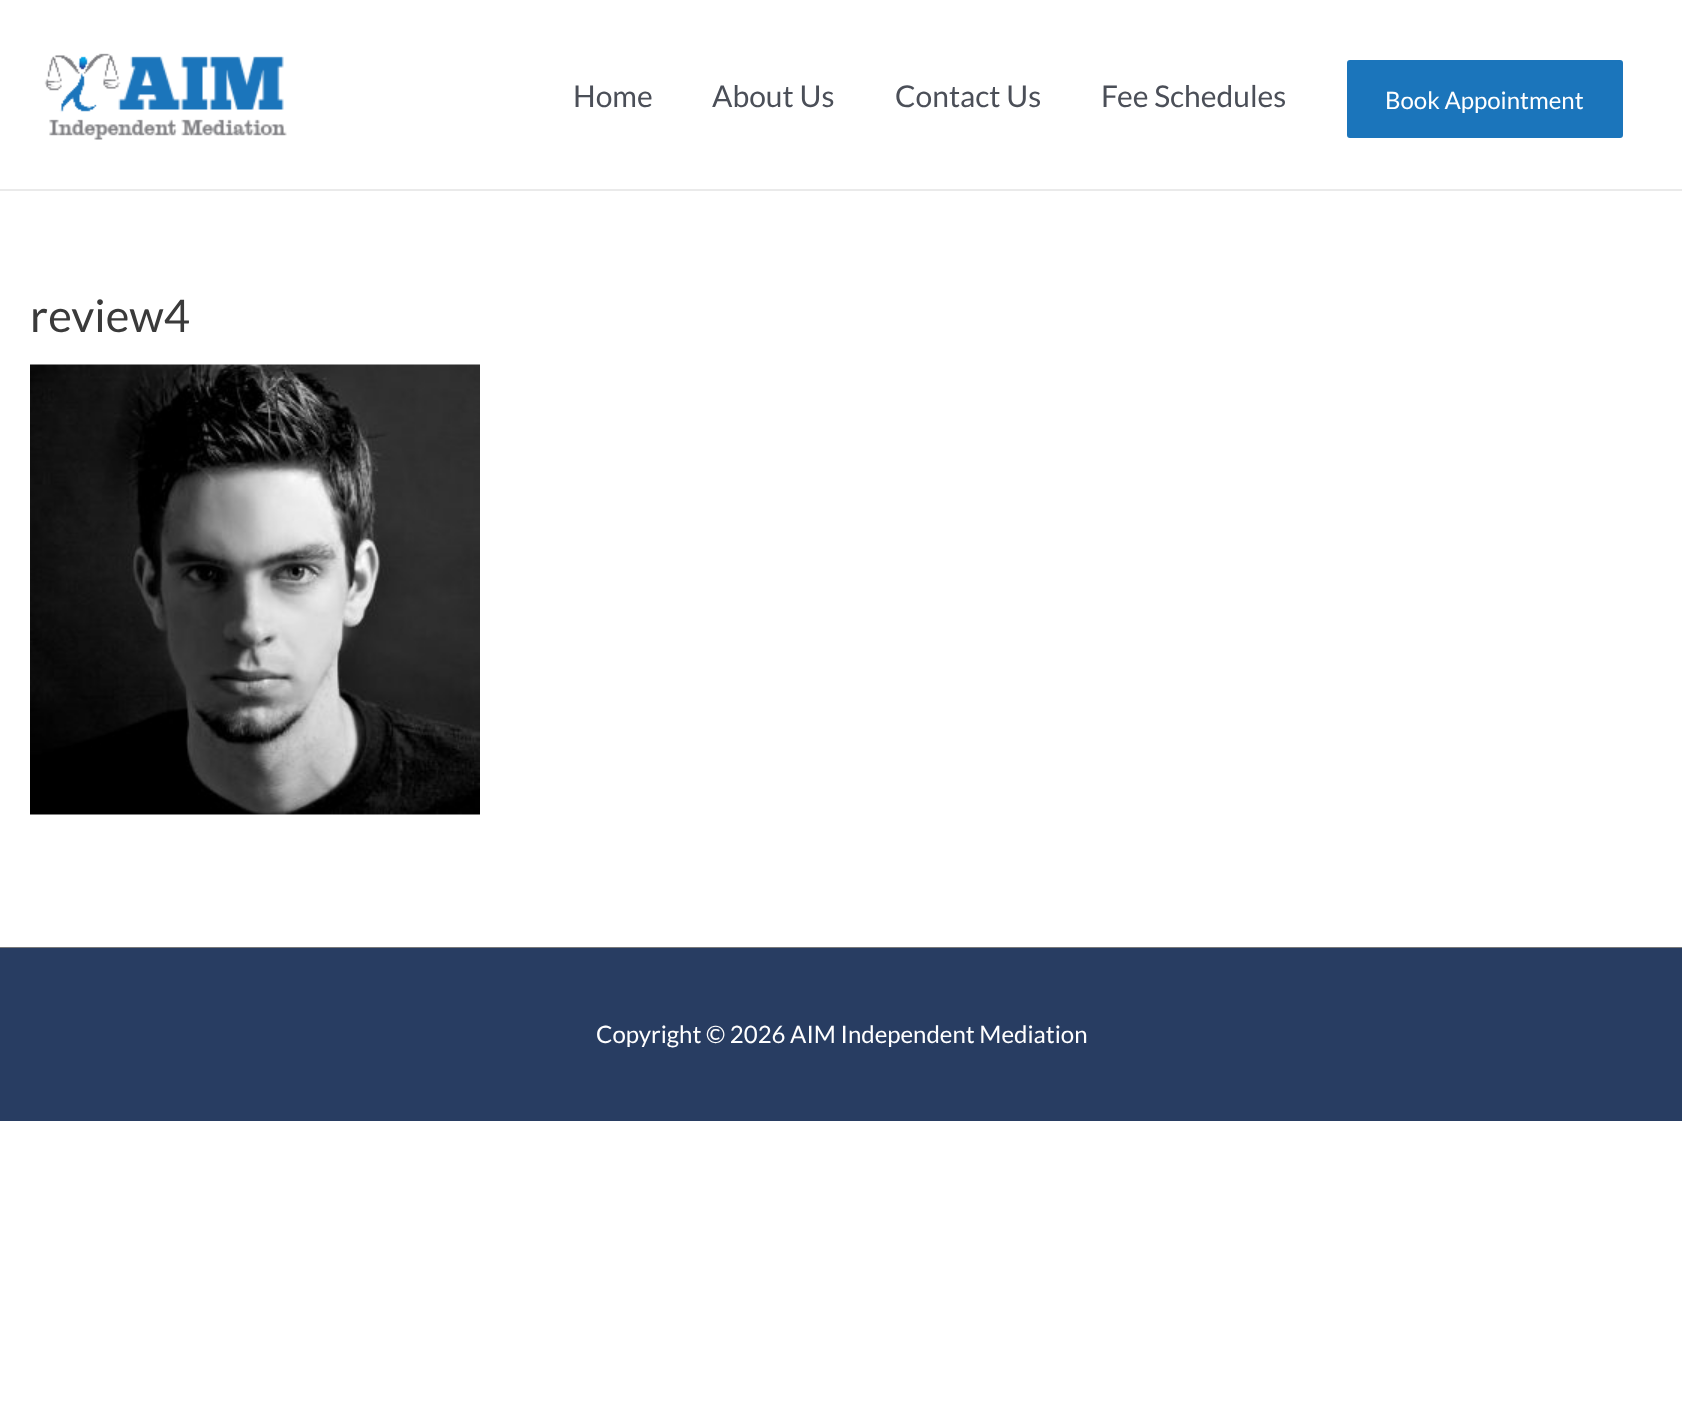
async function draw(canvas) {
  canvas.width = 1682
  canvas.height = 1426
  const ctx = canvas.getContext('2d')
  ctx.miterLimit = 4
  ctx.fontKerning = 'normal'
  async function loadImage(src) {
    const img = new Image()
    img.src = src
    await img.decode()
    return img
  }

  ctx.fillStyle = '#fff'
  ctx.fillRect(0, 0, 1682, 1426)
  ctx.fillStyle = '#eaeaea'
  ctx.fillRect(0, 189, 1682, 2)
  ctx.drawImage(await loadImage('image0.png'), 44, 53, 243, 87)
  ctx.font = '30px Lato'
  ctx.fillStyle = '#4b4f58'
  ctx.fillText('Home', 573, 107)
  ctx.fillText('About Us', 712, 107)
  ctx.fillText('Contact Us', 895, 107)
  ctx.fillText('Fee Schedules', 1101, 107)
  ctx.fillStyle = '#1b75bb'
  ctx.beginPath()
  ctx.roundRect(1348, 61, 274, 76, 2)
  ctx.fill()
  ctx.strokeStyle = '#1b75bb'
  ctx.lineWidth = 2
  ctx.stroke()
  ctx.font = '24px Lato'
  ctx.fillStyle = '#fff'
  ctx.fillText('Book Appointment', 1385, 109)
  ctx.font = '45px Lato'
  ctx.fillStyle = '#3a3a3a'
  ctx.fillText('review4', 30, 332)
  ctx.drawImage(await loadImage('image1.png'), 30, 364, 450, 451)
  ctx.fillStyle = '#7a7a7a'
  ctx.fillRect(0, 947, 1682, 1)
  ctx.fillStyle = '#283d62'
  ctx.fillRect(0, 948, 1682, 173)
  ctx.font = '24px Lato'
  ctx.fillStyle = '#fff'
  ctx.fillText('Copyright © 2026 AIM Independent Mediation', 596, 1043)
}

draw(document.querySelector('canvas'))
